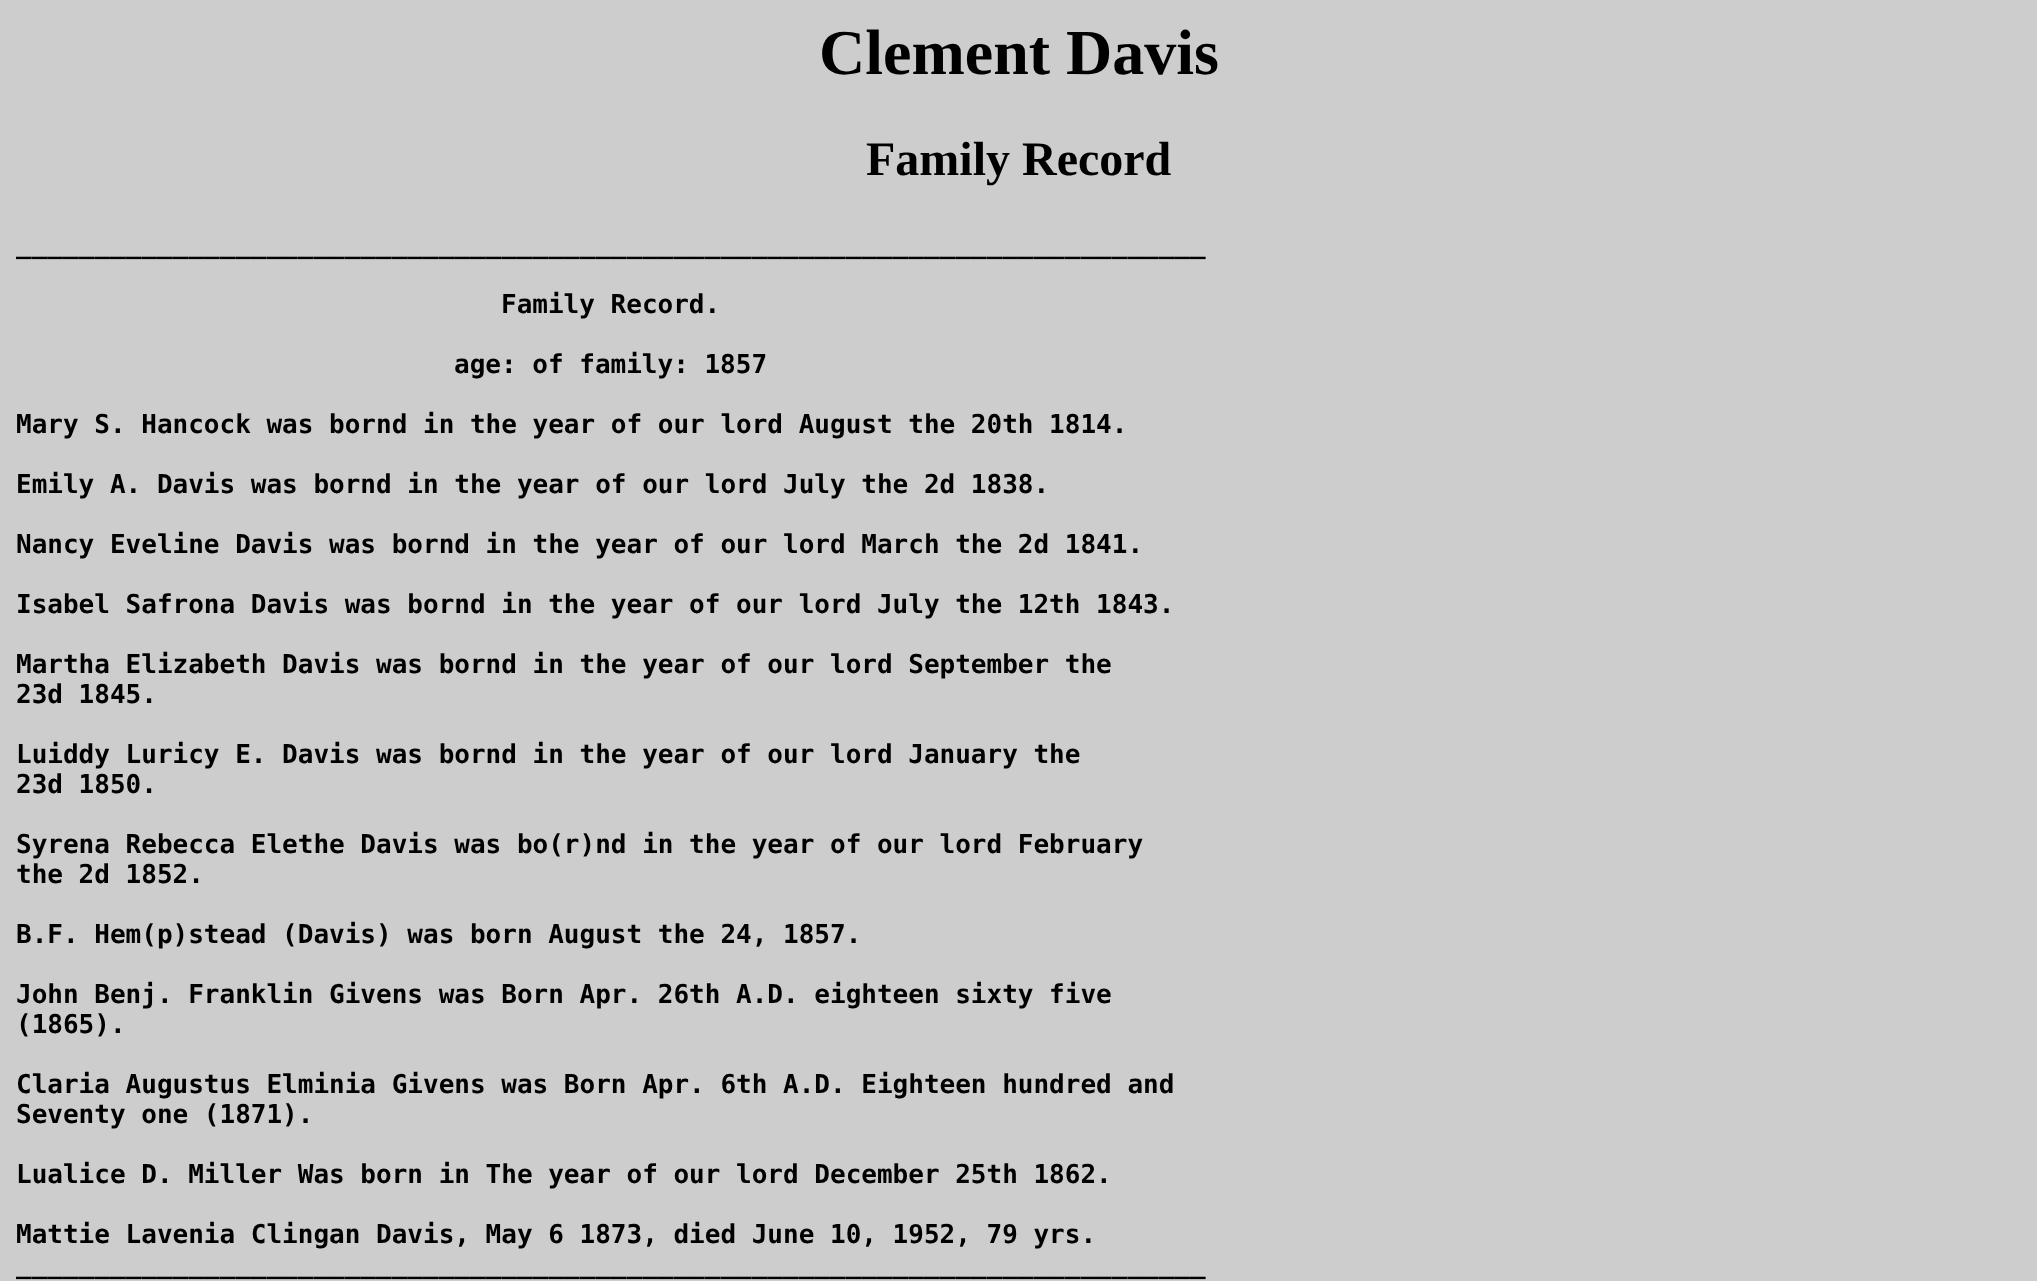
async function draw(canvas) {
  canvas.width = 2037
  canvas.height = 1281
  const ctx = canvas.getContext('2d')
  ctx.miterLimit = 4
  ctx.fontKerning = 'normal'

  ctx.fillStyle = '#cdcdcd'
  ctx.fillRect(0, 0, 2037, 1281)
  ctx.font = 'bold 64px Liberation Serif'
  ctx.fillStyle = '#000'
  ctx.fillText('Clement Davis', 819, 74)
  ctx.font = 'bold 48px Liberation Serif'
  ctx.fillText('Family Record', 866, 175)
  ctx.font = 'bold 26px DejaVu Sans Mono'
  ctx.fillText('____________________________________________________________________________', 16, 253)
  ctx.fillText('Family Record.', 501, 313)
  ctx.fillText('age: of family: 1857', 454, 373)
  ctx.fillText('Mary S. Hancock was bornd in the year of our lord August the 20th 1814.', 16, 433)
  ctx.fillText('Emily A. Davis was bornd in the year of our lord July the 2d 1838.', 16, 493)
  ctx.fillText('Nancy Eveline Davis was bornd in the year of our lord March the 2d 1841.', 16, 553)
  ctx.fillText('Isabel Safrona Davis was bornd in the year of our lord July the 12th 1843.', 16, 613)
  ctx.fillText('Martha Elizabeth Davis was bornd in the year of our lord September the', 16, 673)
  ctx.fillText('23d 1845.', 16, 703)
  ctx.fillText('Luiddy Luricy E. Davis was bornd in the year of our lord January the', 16, 763)
  ctx.fillText('23d 1850.', 16, 793)
  ctx.fillText('Syrena Rebecca Elethe Davis was bo(r)nd in the year of our lord February', 16, 853)
  ctx.fillText('the 2d 1852.', 16, 883)
  ctx.fillText('B.F. Hem(p)stead (Davis) was born August the 24, 1857.', 16, 943)
  ctx.fillText('John Benj. Franklin Givens was Born Apr. 26th A.D. eighteen sixty five', 16, 1003)
  ctx.fillText('(1865).', 16, 1033)
  ctx.fillText('Claria Augustus Elminia Givens was Born Apr. 6th A.D. Eighteen hundred and', 16, 1093)
  ctx.fillText('Seventy one (1871).', 16, 1123)
  ctx.fillText('Lualice D. Miller Was born in The year of our lord December 25th 1862.', 16, 1183)
  ctx.fillText('Mattie Lavenia Clingan Davis, May 6 1873, died June 10, 1952, 79 yrs.', 16, 1243)
  ctx.fillText('____________________________________________________________________________', 16, 1273)
}

draw(document.querySelector('canvas'))
